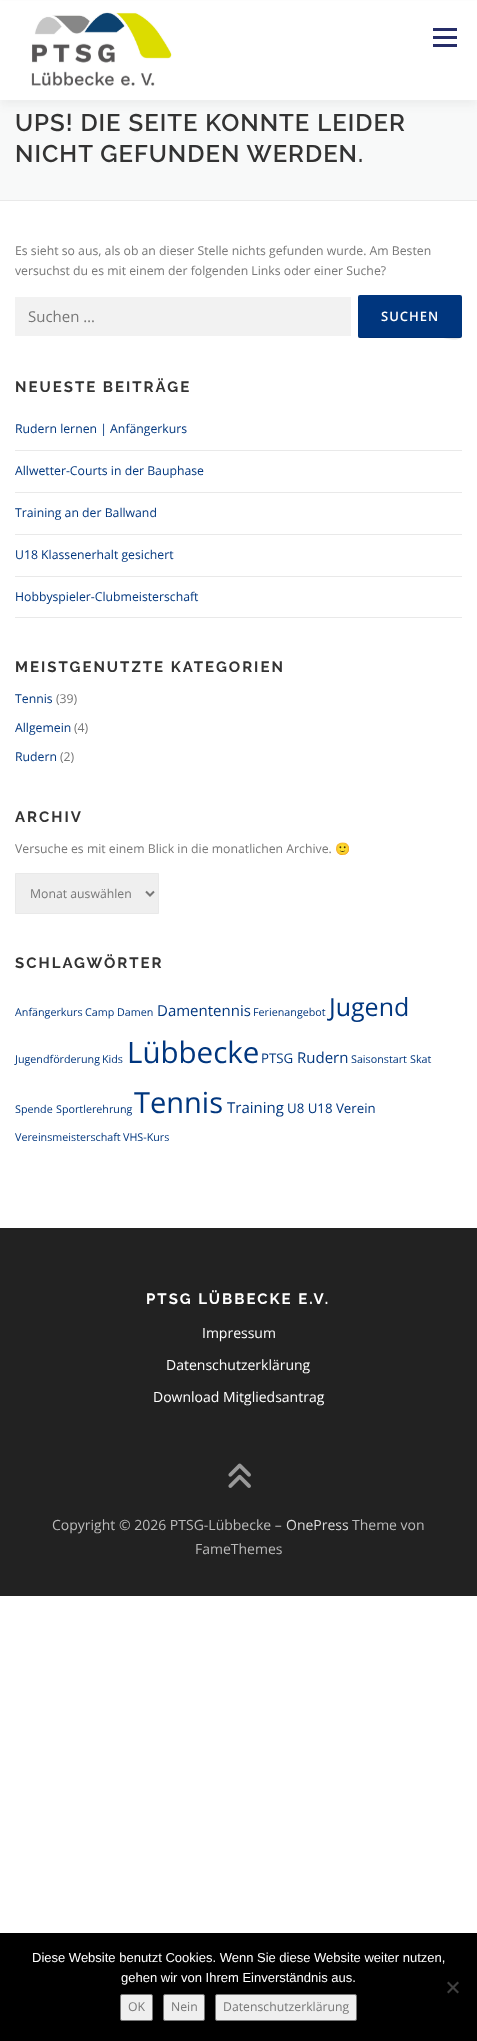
async function draw(canvas) {
  canvas.width = 477
  canvas.height = 2041
  const ctx = canvas.getContext('2d')
  ctx.miterLimit = 4
  ctx.fontKerning = 'normal'
  async function loadImage(src) {
    const img = new Image()
    img.src = src
    await img.decode()
    return img
  }

  ctx.fillStyle = '#fff'
  ctx.fillRect(0, 0, 477, 2041)
  ctx.fillStyle = '#f8f9f9'
  ctx.fillRect(0, 100, 477, 100)
  ctx.fillStyle = '#3232320f'
  ctx.filter = 'blur(5px)'
  ctx.beginPath()
  ctx.rect(0, 5, 477, 100)
  ctx.fill()
  ctx.filter = 'none'
  ctx.fillStyle = '#fff'
  ctx.fillRect(0, 1, 477, 99)
  ctx.drawImage(await loadImage('image0.png'), 31, 12, 141, 74)
  ctx.fillStyle = '#262d68'
  ctx.fillRect(433, 36, 24, 3)
  ctx.fillRect(433, 28, 24, 3)
  ctx.fillRect(433, 44, 24, 3)
  ctx.fillStyle = '#e9e9e9'
  ctx.fillRect(0, 200, 477, 1)
  ctx.letterSpacing = '1px'
  ctx.font = '600 24px Raleway'
  ctx.fillStyle = '#333'
  ctx.fillText('UPS! DIE SEITE KONNTE LEIDER', 15, 131)
  ctx.fillText('NICHT GEFUNDEN WERDEN.', 15, 162)
  ctx.letterSpacing = '0px'
  ctx.font = '12.25px Open Sans'
  ctx.fillStyle = '#777'
  ctx.fillText('Es sieht so aus, als ob an dieser Stelle nichts gefunden wurde. Am Besten', 15, 255)
  ctx.fillText('versuchst du es mit einem der folgenden Links oder einer Suche?', 15, 275)
  ctx.fillStyle = '#f2f2f2'
  ctx.fillRect(15, 297, 336, 39)
  ctx.font = '15px Open Sans'
  ctx.fillStyle = '#777'
  ctx.fillText('Suchen …', 28, 322)
  ctx.fillStyle = '#00367e'
  ctx.beginPath()
  ctx.roundRect(358, 295, 104, 43, 2)
  ctx.fill()
  ctx.fillStyle = '#0000001a'
  ctx.beginPath()
  ctx.moveTo(358, 335)
  ctx.bezierCurveTo(358, 336, 358, 338, 360, 338)
  ctx.lineTo(443, 338)
  ctx.bezierCurveTo(444, 338, 462, 343, 462, 335)
  ctx.bezierCurveTo(462, 336, 461, 337, 460, 337)
  ctx.lineTo(360, 337)
  ctx.bezierCurveTo(359, 337, 358, 336, 358, 335)
  ctx.closePath()
  ctx.fill()
  ctx.letterSpacing = '1px'
  ctx.font = '600 13px Open Sans'
  ctx.fillStyle = '#fff'
  ctx.fillText('SUCHEN', 381, 321)
  ctx.letterSpacing = '2px'
  ctx.font = 'bold 15px Raleway'
  ctx.fillStyle = '#333'
  ctx.fillText('NEUESTE BEITRÄGE', 15, 392)
  ctx.fillStyle = '#e9e9e9'
  ctx.fillRect(15, 450, 447, 1)
  ctx.letterSpacing = '0px'
  ctx.font = '12.25px Open Sans'
  ctx.fillStyle = '#00367e'
  ctx.fillText('Rudern lernen | Anfängerkurs', 15, 433)
  ctx.fillStyle = '#e9e9e9'
  ctx.fillRect(15, 492, 447, 1)
  ctx.fillStyle = '#00367e'
  ctx.fillText('Allwetter-Courts in der Bauphase', 15, 475)
  ctx.fillStyle = '#e9e9e9'
  ctx.fillRect(15, 534, 447, 1)
  ctx.fillStyle = '#00367e'
  ctx.fillText('Training an der Ballwand', 15, 517)
  ctx.fillStyle = '#e9e9e9'
  ctx.fillRect(15, 576, 447, 1)
  ctx.fillStyle = '#00367e'
  ctx.fillText('U18 Klassenerhalt gesichert', 15, 559)
  ctx.fillStyle = '#e9e9e9'
  ctx.fillRect(15, 617, 447, 1)
  ctx.fillStyle = '#00367e'
  ctx.fillText('Hobbyspieler-Clubmeisterschaft', 15, 601)
  ctx.letterSpacing = '2px'
  ctx.font = 'bold 15px Raleway'
  ctx.fillStyle = '#333'
  ctx.fillText('MEISTGENUTZTE KATEGORIEN', 15, 672)
  ctx.letterSpacing = '0px'
  ctx.font = '12.25px Open Sans'
  ctx.fillStyle = '#00367e'
  ctx.fillText('Tennis', 15, 703)
  ctx.fillStyle = '#777'
  ctx.fillText('(39)', 56, 703)
  ctx.fillStyle = '#00367e'
  ctx.fillText('Allgemein', 15, 732)
  ctx.fillStyle = '#777'
  ctx.fillText('(4)', 74, 732)
  ctx.fillStyle = '#00367e'
  ctx.fillText('Rudern', 15, 761)
  ctx.fillStyle = '#777'
  ctx.fillText('(2)', 60, 761)
  ctx.letterSpacing = '2px'
  ctx.font = 'bold 15px Raleway'
  ctx.fillStyle = '#333'
  ctx.fillText('ARCHIV', 15, 822)
  ctx.letterSpacing = '0px'
  ctx.font = '12.25px Open Sans'
  ctx.fillStyle = '#777'
  ctx.fillText('Versuche es mit einem Blick in die monatlichen Archive.', 15, 853)
  ctx.font = '12.25px Noto Color Emoji'
  ctx.fillText('🙂', 335, 853)
  ctx.fillStyle = '#efefef'
  ctx.beginPath()
  ctx.rect(15.5, 873.5, 143, 40)
  ctx.fill()
  ctx.strokeStyle = '#e9e9e9'
  ctx.stroke()
  ctx.beginPath()
  ctx.moveTo(146, 891.5)
  ctx.lineTo(150, 895.5)
  ctx.lineTo(154, 891.5)
  ctx.strokeStyle = '#777'
  ctx.lineWidth = 2
  ctx.stroke()
  ctx.font = '12.25px Open Sans'
  ctx.fillStyle = '#777'
  ctx.fillText('Monat auswählen', 30, 898)
  ctx.letterSpacing = '2px'
  ctx.font = 'bold 15px Raleway'
  ctx.fillStyle = '#333'
  ctx.fillText('SCHLAGWÖRTER', 15, 968)
  ctx.letterSpacing = '0px'
  ctx.font = '10.75px Open Sans'
  ctx.fillStyle = '#00367e'
  ctx.fillText('Anfängerkurs', 15, 1016)
  ctx.fillText('Camp', 85, 1016)
  ctx.fillText('Damen', 117, 1016)
  ctx.font = '15px Open Sans'
  ctx.fillText('Damentennis', 157, 1016)
  ctx.font = '10.75px Open Sans'
  ctx.fillText('Ferienangebot', 253, 1016)
  ctx.font = '25px Open Sans'
  ctx.fillText('Jugend', 329, 1016)
  ctx.font = '10.75px Open Sans'
  ctx.fillText('Jugendförderung', 15, 1063)
  ctx.fillText('Kids', 102, 1063)
  ctx.font = '29.5px Open Sans'
  ctx.fillText('Lübbecke', 127, 1063)
  ctx.font = '13.25px Open Sans'
  ctx.fillText('PTSG', 261, 1063)
  ctx.font = '15px Open Sans'
  ctx.fillText('Rudern', 297, 1063)
  ctx.font = '10.75px Open Sans'
  ctx.fillText('Saisonstart', 351, 1063)
  ctx.fillText('Skat', 410, 1063)
  ctx.fillText('Spende', 15, 1113)
  ctx.fillText('Sportlerehrung', 56, 1113)
  ctx.font = '29px Open Sans'
  ctx.fillText('Tennis', 134, 1113)
  ctx.font = '15px Open Sans'
  ctx.fillText('Training', 227, 1113)
  ctx.font = '13.25px Open Sans'
  ctx.fillText('U8 U18 Verein', 287, 1113)
  ctx.font = '10.75px Open Sans'
  ctx.fillText('Vereinsmeisterschaft', 15, 1141)
  ctx.fillText('VHS-Kurs', 123, 1141)
  ctx.fillStyle = '#222'
  ctx.fillRect(0, 1228, 477, 368)
  ctx.letterSpacing = '2px'
  ctx.font = 'bold 15px Raleway'
  ctx.fillStyle = '#fff'
  ctx.fillText('PTSG LÜBBECKE E.V.', 146, 1304)
  ctx.letterSpacing = '0px'
  ctx.font = '14px Open Sans'
  ctx.fillText('Impressum', 202, 1338)
  ctx.fillText('Datenschutzerklärung', 166, 1370)
  ctx.fillText('Download Mitgliedsantrag', 153, 1402)
  ctx.drawImage(await loadImage('image1.png'), 228, 1463, 23, 25)
  ctx.fillStyle = '#bbb'
  ctx.fillText('Copyright © 2026 PTSG-Lübbecke –', 52, 1530)
  ctx.fillStyle = '#ddd'
  ctx.fillText('OnePress', 286, 1530)
  ctx.fillStyle = '#bbb'
  ctx.fillText('Theme von', 352, 1530)
  ctx.fillText('FameThemes', 195, 1554)
  ctx.fillStyle = '#000'
  ctx.fillRect(0, 1933, 477, 108)
  ctx.font = '13px Liberation Sans'
  ctx.fillStyle = '#fff'
  ctx.fillText('Diese Website benutzt Cookies. Wenn Sie diese Website weiter nutzen,', 32, 1962)
  ctx.fillText('gehen wir von Ihrem Einverständnis aus.', 121, 1982)
  ctx.fillStyle = '#404040'
  ctx.beginPath()
  ctx.moveTo(457.5, 1981.5)
  ctx.lineTo(459, 1983)
  ctx.lineTo(448.5, 1993.5)
  ctx.lineTo(447, 1992)
  ctx.closePath()
  ctx.fill()
  ctx.beginPath()
  ctx.moveTo(447, 1983)
  ctx.lineTo(448.5, 1981.5)
  ctx.lineTo(459, 1992)
  ctx.lineTo(457.5, 1993.5)
  ctx.closePath()
  ctx.fill()
  ctx.fillStyle = '#efefef'
  ctx.beginPath()
  ctx.roundRect(120.5, 1994.5, 32, 26, 1.5)
  ctx.fill()
  ctx.strokeStyle = '#767676'
  ctx.lineWidth = 1
  ctx.stroke()
  ctx.font = '12.25px Open Sans'
  ctx.fillStyle = '#777'
  ctx.fillText('OK', 128, 2011)
  ctx.fillStyle = '#efefef'
  ctx.beginPath()
  ctx.roundRect(163.5, 1994.5, 41, 26, 1.5)
  ctx.fill()
  ctx.stroke()
  ctx.fillStyle = '#777'
  ctx.fillText('Nein', 171, 2011)
  ctx.fillStyle = '#efefef'
  ctx.beginPath()
  ctx.roundRect(215.5, 1994.5, 141, 26, 1.5)
  ctx.fill()
  ctx.stroke()
  ctx.fillStyle = '#777'
  ctx.fillText('Datenschutzerklärung', 223, 2011)
}

draw(document.querySelector('canvas'))
